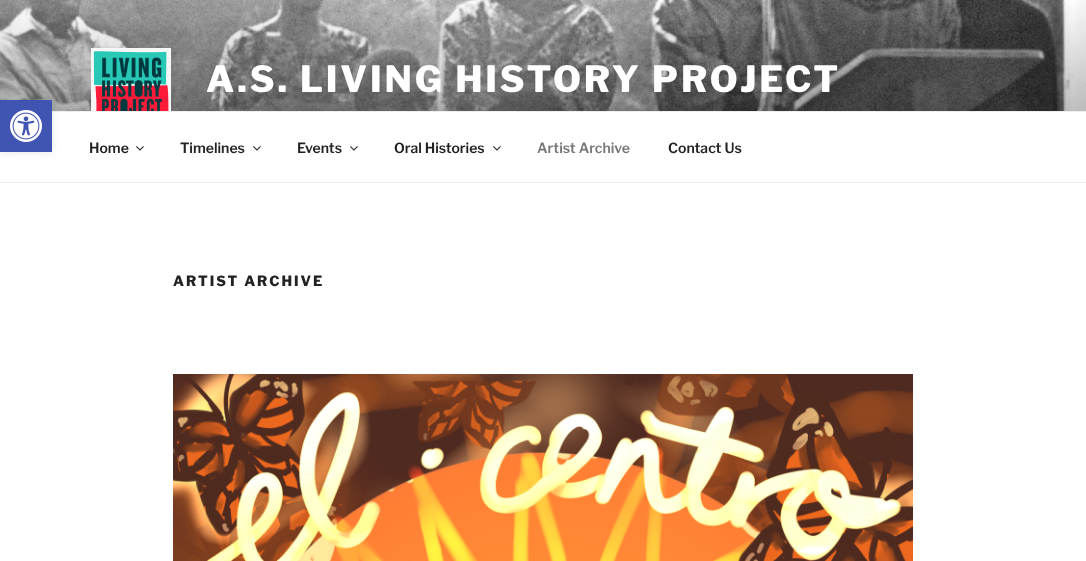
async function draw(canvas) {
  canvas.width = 1086
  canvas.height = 561
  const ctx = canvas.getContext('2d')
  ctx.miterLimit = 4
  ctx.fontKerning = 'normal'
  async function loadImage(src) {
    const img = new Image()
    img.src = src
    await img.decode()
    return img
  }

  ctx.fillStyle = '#fff'
  ctx.fillRect(0, 0, 1086, 561)
  ctx.drawImage(await loadImage('image1.png'), 0, 0, 1086, 111)
  ctx.fillStyle = '#eee'
  ctx.fillRect(52, 111, 1034, 1)
  ctx.fillStyle = '#0000001a'
  ctx.filter = 'blur(5px)'
  ctx.beginPath()
  ctx.rect(0, 100, 52, 52)
  ctx.fill()
  ctx.filter = 'none'
  ctx.fillStyle = '#4054b2'
  ctx.fillRect(0, 100, 52, 52)
  ctx.drawImage(await loadImage('image0.png'), 10, 110, 32, 32)
  ctx.drawImage(await loadImage('image2.png'), 91, 48, 80, 63)
  ctx.letterSpacing = '2.9px'
  ctx.font = '100 36px Libre Franklin'
  ctx.fillStyle = '#fff'
  ctx.fillText('A.S. LIVING HISTORY PROJECT', 206, 92)
  ctx.fillStyle = '#eee'
  ctx.fillRect(0, 182, 1086, 1)
  ctx.letterSpacing = '0px'
  ctx.font = '100 14px "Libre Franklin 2"'
  ctx.fillStyle = '#222'
  ctx.fillText('Home', 89, 153)
  ctx.drawImage(await loadImage('image3.png'), 136, 146, 8, 5)
  ctx.fillText('Timelines', 180, 153)
  ctx.drawImage(await loadImage('image3.png'), 253, 146, 8, 5)
  ctx.fillText('Events', 297, 153)
  ctx.drawImage(await loadImage('image3.png'), 350, 146, 8, 5)
  ctx.fillText('Oral Histories', 394, 153)
  ctx.drawImage(await loadImage('image3.png'), 493, 146, 8, 5)
  ctx.fillStyle = '#767676'
  ctx.fillText('Artist Archive', 537, 153)
  ctx.fillStyle = '#222'
  ctx.fillText('Contact Us', 668, 153)
  ctx.letterSpacing = '2px'
  ctx.font = '100 14px Libre Franklin'
  ctx.fillText('ARTIST ARCHIVE', 173, 286)
  ctx.drawImage(await loadImage('image4.png'), 173, 374, 740, 187)
}

draw(document.querySelector('canvas'))
